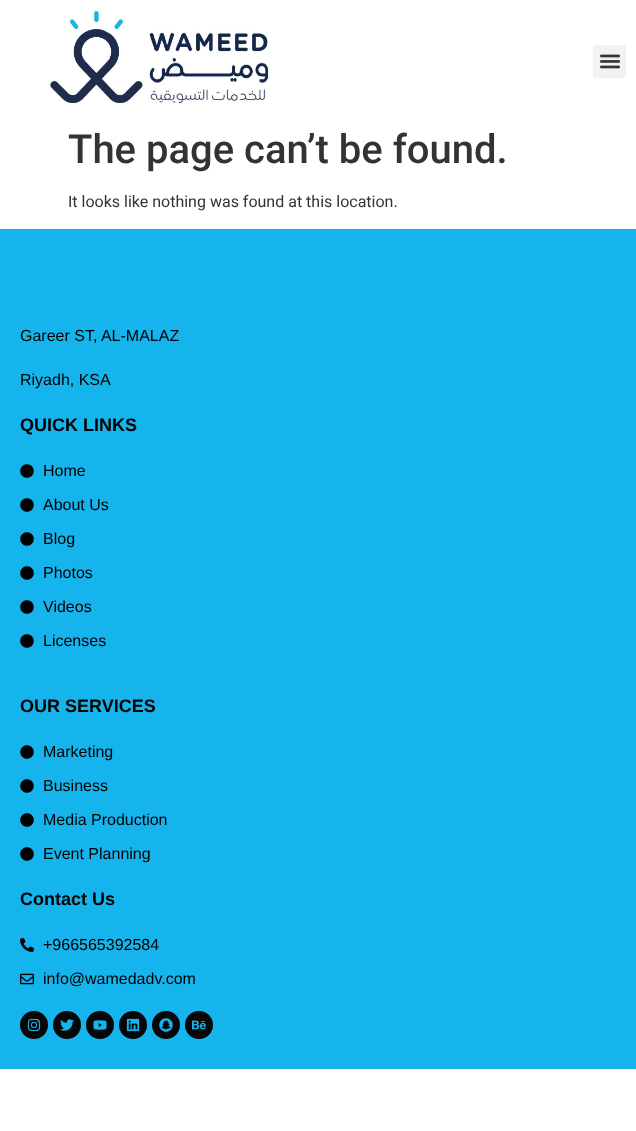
async function draw(canvas) {
  canvas.width = 636
  canvas.height = 1131
  const ctx = canvas.getContext('2d')
  ctx.miterLimit = 4
  ctx.fontKerning = 'normal'
  async function loadImage(src) {
    const img = new Image()
    img.src = src
    await img.decode()
    return img
  }

  ctx.fillStyle = '#fff'
  ctx.fillRect(0, 0, 636, 1131)
  ctx.drawImage(await loadImage('image0.png'), 48, 8, 222, 96)
  ctx.fillStyle = '#f2f2f2'
  ctx.beginPath()
  ctx.roundRect(593, 45, 33, 33, 3)
  ctx.fill()
  ctx.drawImage(await loadImage('image1.png'), 599, 54, 22, 15)
  ctx.font = '500 40px Roboto'
  ctx.fillStyle = '#333'
  ctx.fillText('The page can’t be found.', 68, 163)
  ctx.font = '16px Roboto'
  ctx.fillText('It looks like nothing was found at this location.', 68, 207)
  ctx.fillStyle = '#15b4ed'
  ctx.fillRect(0, 229, 636, 840)
  ctx.font = '16px Liberation Sans'
  ctx.fillStyle = '#000'
  ctx.fillText('Gareer ST, AL-MALAZ', 20, 341)
  ctx.fillText('Riyadh, KSA', 20, 385)
  ctx.font = 'bold 18px Liberation Sans'
  ctx.fillText('QUICK LINKS', 20, 431)
  ctx.drawImage(await loadImage('image2.png'), 20, 464, 14, 14)
  ctx.font = '16px Liberation Sans'
  ctx.fillText('Home', 43, 476)
  ctx.drawImage(await loadImage('image2.png'), 20, 498, 14, 14)
  ctx.fillText('About Us', 43, 510)
  ctx.drawImage(await loadImage('image2.png'), 20, 532, 14, 14)
  ctx.fillText('Blog', 43, 544)
  ctx.drawImage(await loadImage('image2.png'), 20, 566, 14, 14)
  ctx.fillText('Photos', 43, 578)
  ctx.drawImage(await loadImage('image2.png'), 20, 600, 14, 14)
  ctx.fillText('Videos', 43, 612)
  ctx.drawImage(await loadImage('image2.png'), 20, 634, 14, 14)
  ctx.fillText('Licenses', 43, 646)
  ctx.font = 'bold 18px Liberation Sans'
  ctx.fillText('OUR SERVICES', 20, 712)
  ctx.drawImage(await loadImage('image2.png'), 20, 745, 14, 14)
  ctx.font = '16px Liberation Sans'
  ctx.fillText('Marketing', 43, 757)
  ctx.drawImage(await loadImage('image2.png'), 20, 779, 14, 14)
  ctx.fillText('Business', 43, 791)
  ctx.drawImage(await loadImage('image2.png'), 20, 813, 14, 14)
  ctx.fillText('Media Production', 43, 825)
  ctx.drawImage(await loadImage('image2.png'), 20, 847, 14, 14)
  ctx.fillText('Event Planning', 43, 859)
  ctx.font = 'bold 18px Liberation Sans'
  ctx.fillText('Contact Us', 20, 905)
  ctx.drawImage(await loadImage('image3.png'), 20, 938, 14, 14)
  ctx.font = '16px Liberation Sans'
  ctx.fillText('+966565392584', 43, 950)
  ctx.drawImage(await loadImage('image4.png'), 20, 973, 14, 12)
  ctx.fillText('info@wamedadv.com', 43, 984)
  ctx.fillStyle = '#070707'
  ctx.beginPath()
  ctx.arc(34, 1025, 14, 0, 2 * Math.PI)
  ctx.fill()
  ctx.drawImage(await loadImage('image5.png'), 27, 1018, 14, 14)
  ctx.beginPath()
  ctx.arc(67, 1025, 14, 0, 2 * Math.PI)
  ctx.fill()
  ctx.drawImage(await loadImage('image6.png'), 60, 1019, 14, 12)
  ctx.beginPath()
  ctx.arc(100, 1025, 14, 0, 2 * Math.PI)
  ctx.fill()
  ctx.drawImage(await loadImage('image7.png'), 93, 1020, 14, 10)
  ctx.beginPath()
  ctx.arc(133, 1025, 14, 0, 2 * Math.PI)
  ctx.fill()
  ctx.drawImage(await loadImage('image8.png'), 126, 1018, 14, 14)
  ctx.beginPath()
  ctx.arc(166, 1025, 14, 0, 2 * Math.PI)
  ctx.fill()
  ctx.drawImage(await loadImage('image9.png'), 159, 1018, 14, 14)
  ctx.beginPath()
  ctx.arc(199, 1025, 14, 0, 2 * Math.PI)
  ctx.fill()
  ctx.drawImage(await loadImage('image10.png'), 192, 1020, 14, 10)
}

draw(document.querySelector('canvas'))
